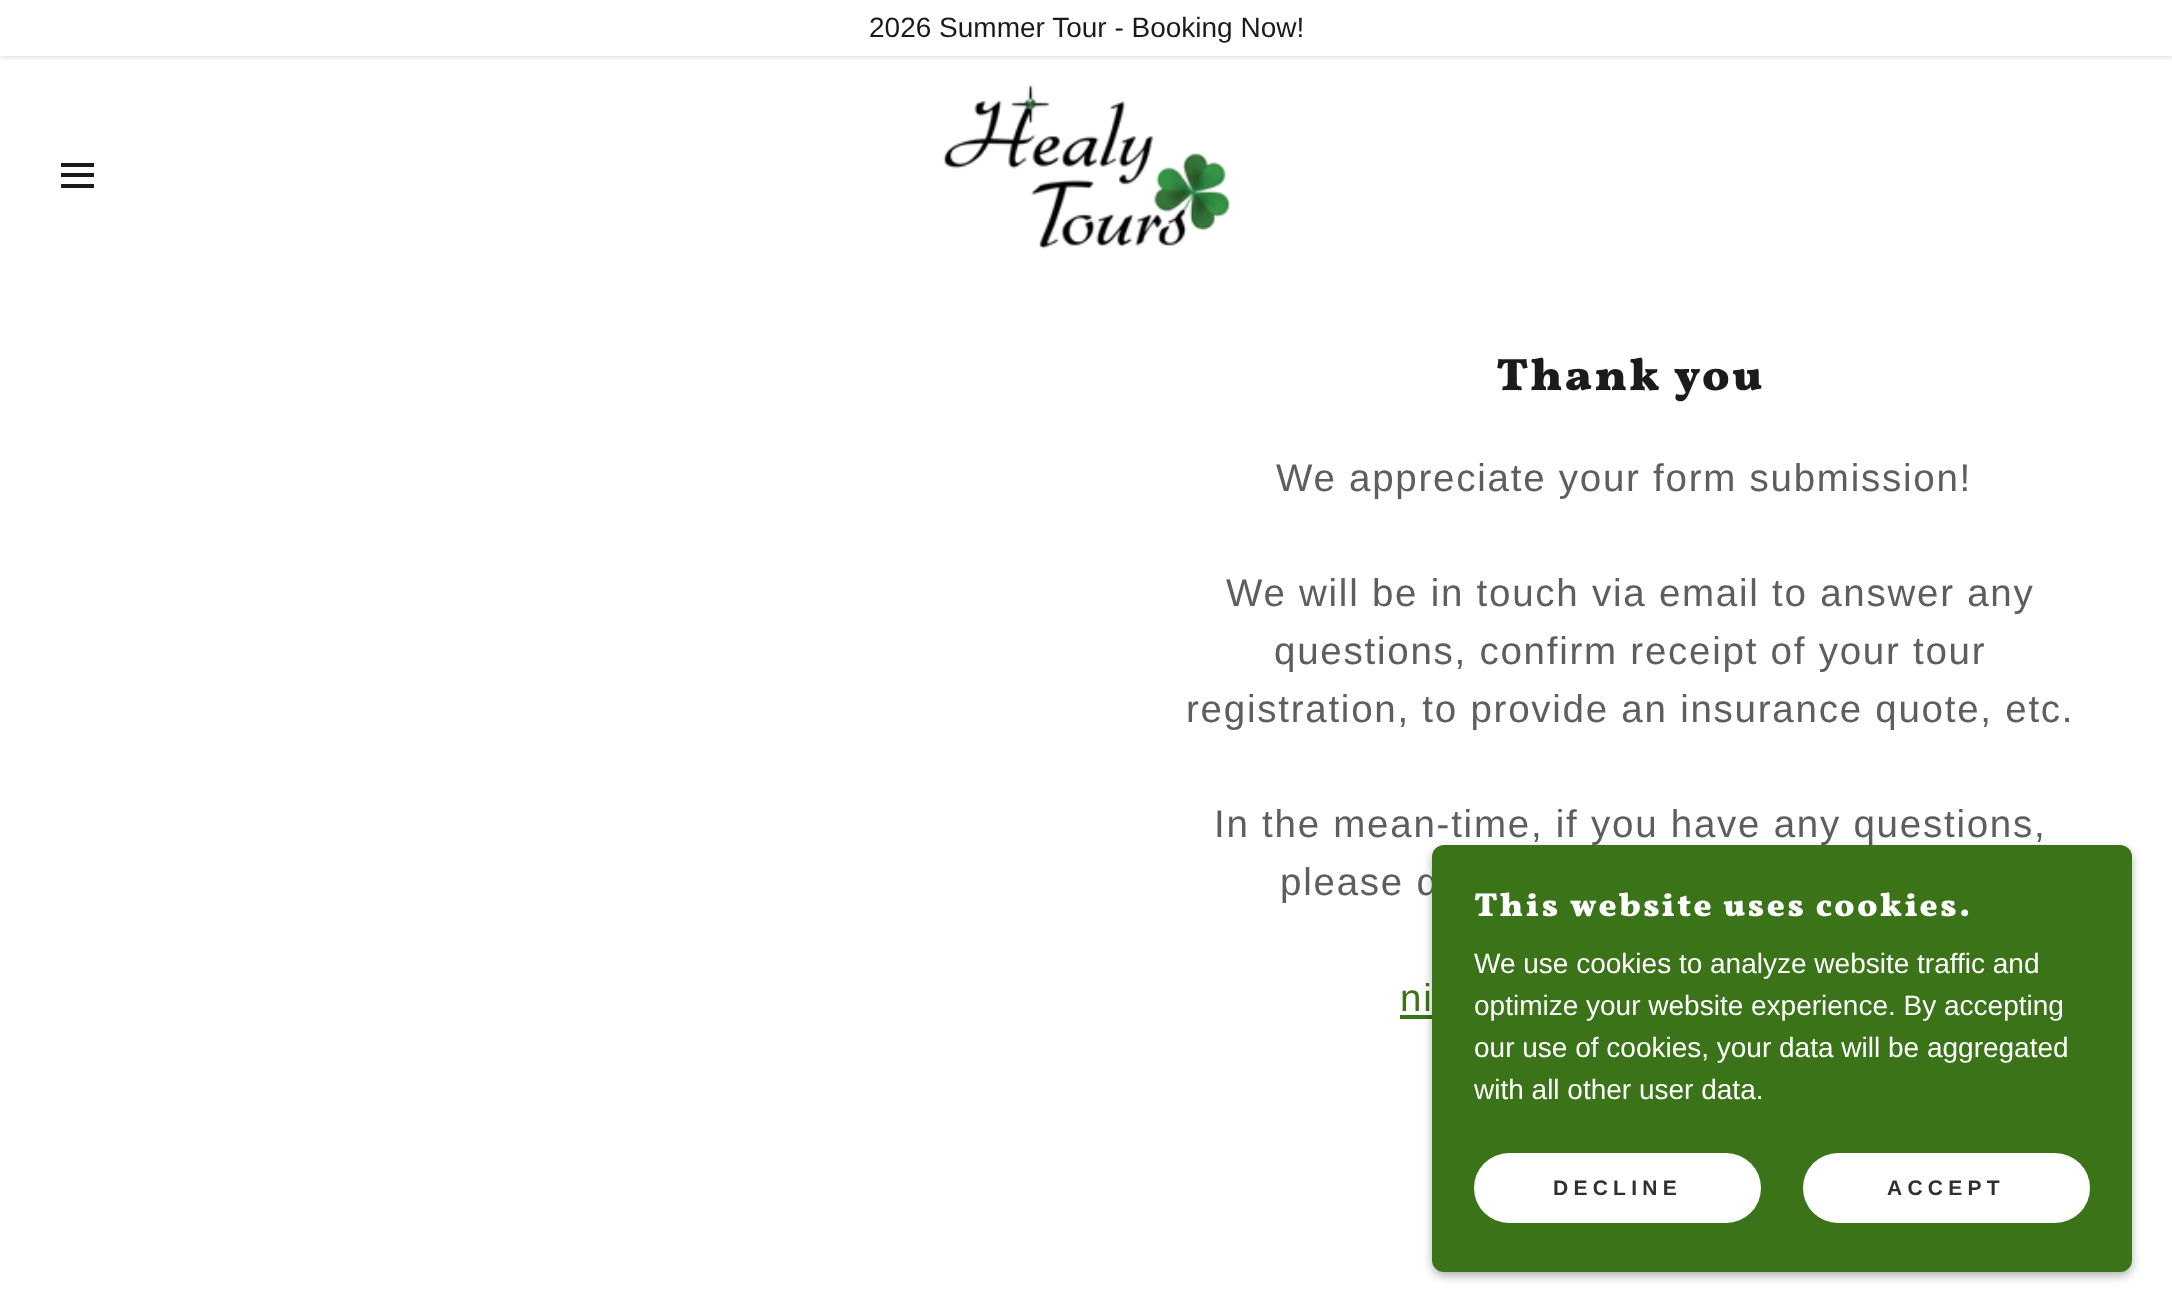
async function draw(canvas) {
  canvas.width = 2172
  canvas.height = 1314
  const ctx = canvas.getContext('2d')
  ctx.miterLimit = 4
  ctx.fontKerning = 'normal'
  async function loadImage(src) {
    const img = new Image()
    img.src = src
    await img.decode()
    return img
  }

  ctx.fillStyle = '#fff'
  ctx.fillRect(0, 0, 2172, 1314)
  ctx.save()
  ctx.beginPath()
  ctx.rect(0, 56, 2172, 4)
  ctx.clip()
  ctx.fillStyle = '#00000033'
  ctx.filter = 'blur(3.5px)'
  ctx.beginPath()
  ctx.rect(0, 0, 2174, 56)
  ctx.fill()
  ctx.filter = 'none'
  ctx.restore()
  ctx.font = '28px Liberation Sans'
  ctx.fillStyle = '#1b1b1b'
  ctx.fillText('2026 Summer Tour - Booking Now!', 869, 37)
  ctx.fillRect(61, 163, 33, 4)
  ctx.fillRect(61, 173, 33, 4)
  ctx.fillRect(61, 184, 33, 4)
  ctx.drawImage(await loadImage('image0.png'), 943, 85, 288, 164)
  ctx.letterSpacing = '2.6px'
  ctx.font = '900 45.5px Vollkorn'
  ctx.fillText('Thank you', 1496, 390)
  ctx.letterSpacing = '1.75px'
  ctx.font = '38.5px Liberation Sans'
  ctx.fillStyle = '#5e5e5e'
  ctx.fillText('We appreciate your form submission!', 1276, 491)
  ctx.fillText('We will be in touch via email to answer any', 1226, 606)
  ctx.fillText('questions, confirm receipt of your tour', 1274, 664)
  ctx.fillText('registration, to provide an insurance quote, etc.', 1186, 722)
  ctx.fillText('In the mean-time, if you have any questions,', 1214, 837)
  ctx.fillText('please d', 1280, 895)
  ctx.fillStyle = '#3b7319'
  ctx.fillText('ni', 1400, 1011)
  ctx.fillRect(1400, 1015, 32, 4)
  ctx.fillStyle = '#0000004d'
  ctx.filter = 'blur(5px)'
  ctx.beginPath()
  ctx.roundRect(1432, 849, 700, 427, 12)
  ctx.fill()
  ctx.filter = 'none'
  ctx.fillStyle = '#3b7319'
  ctx.beginPath()
  ctx.roundRect(1432, 845, 700, 427, 12)
  ctx.fill()
  ctx.letterSpacing = '2.6px'
  ctx.font = '900 33.25px Vollkorn'
  ctx.fillStyle = '#fff'
  ctx.fillText('This website uses cookies.', 1474, 916)
  ctx.letterSpacing = '0px'
  ctx.font = '28px Liberation Sans'
  ctx.fillText('We use cookies to analyze website traffic and', 1474, 973)
  ctx.fillText('optimize your website experience. By accepting', 1474, 1015)
  ctx.fillText('our use of cookies, your data will be aggregated', 1474, 1057)
  ctx.fillText('with all other user data.', 1474, 1099)
  ctx.beginPath()
  ctx.roundRect(1474, 1153, 287, 70, 35)
  ctx.fill()
  ctx.letterSpacing = '5.25px'
  ctx.font = 'bold 21px Liberation Sans'
  ctx.fillStyle = '#303030'
  ctx.fillText('DECLINE', 1553, 1195)
  ctx.fillStyle = '#fff'
  ctx.beginPath()
  ctx.roundRect(1803, 1153, 287, 70, 35)
  ctx.fill()
  ctx.fillStyle = '#303030'
  ctx.fillText('ACCEPT', 1887, 1195)
}

draw(document.querySelector('canvas'))
